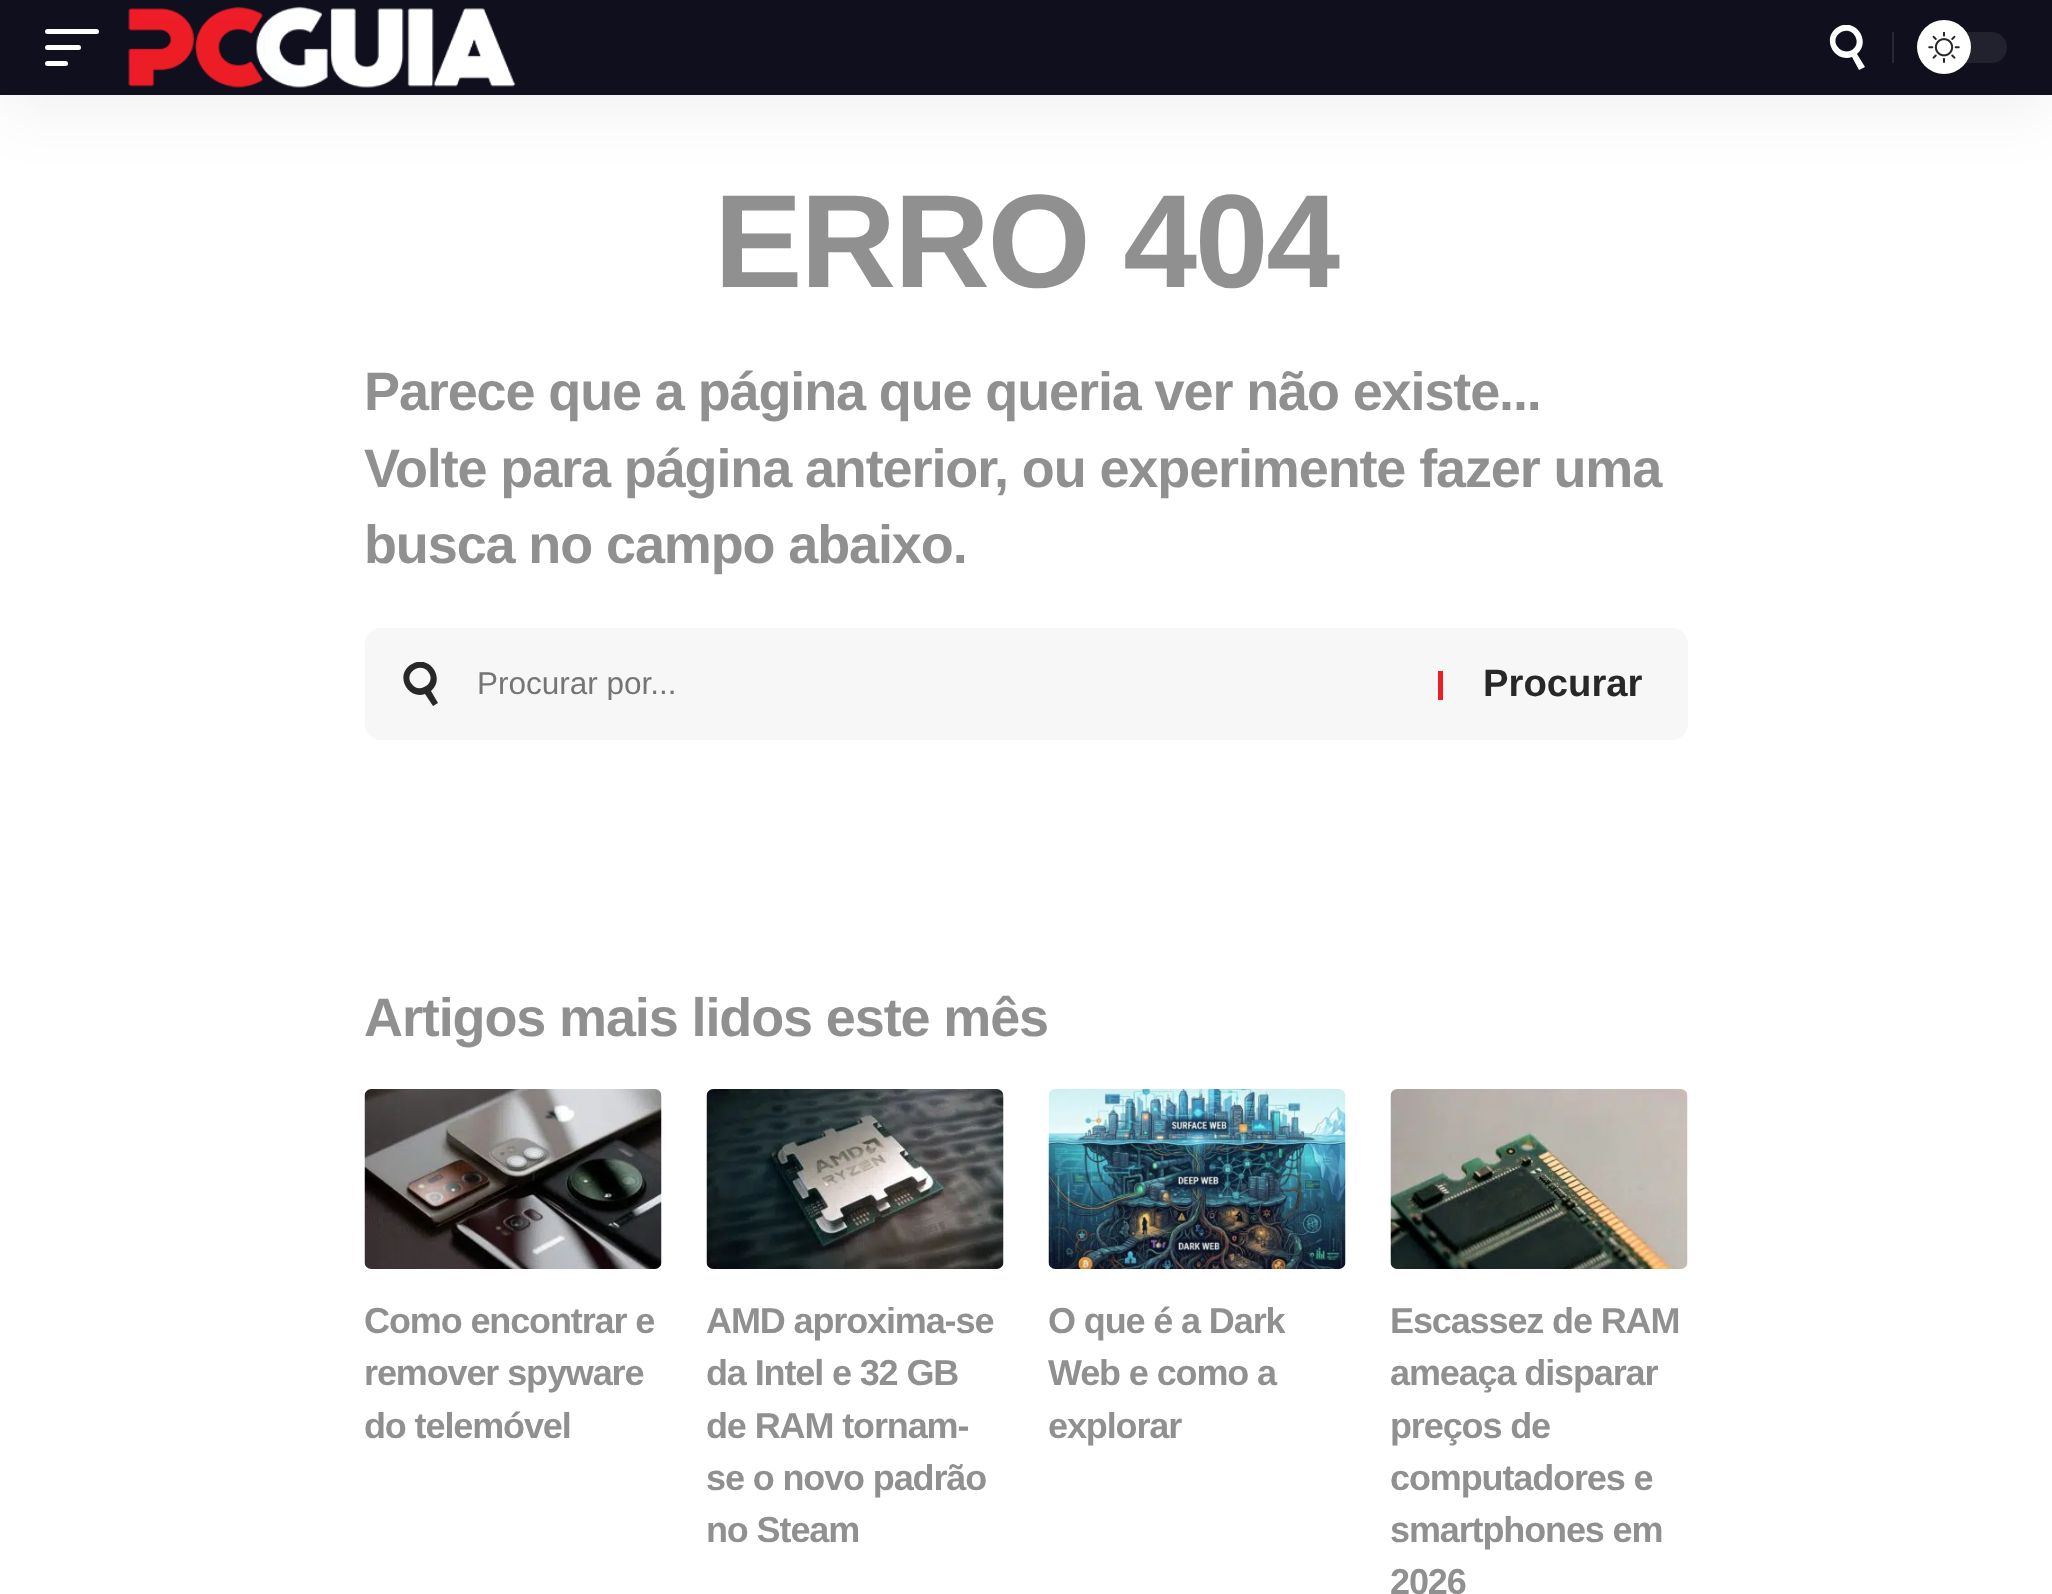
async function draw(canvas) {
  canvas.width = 2052
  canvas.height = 1594
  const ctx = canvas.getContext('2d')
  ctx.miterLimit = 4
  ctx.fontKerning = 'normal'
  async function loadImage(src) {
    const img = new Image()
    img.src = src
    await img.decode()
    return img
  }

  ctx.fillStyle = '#fff'
  ctx.fillRect(0, 0, 2052, 1594)
  ctx.fillStyle = '#00000012'
  ctx.filter = 'blur(34px)'
  ctx.beginPath()
  ctx.rect(0, 9, 2052, 95)
  ctx.fill()
  ctx.filter = 'none'
  ctx.fillStyle = '#100f1e'
  ctx.fillRect(0, 0, 2052, 95)
  ctx.fillStyle = '#fff'
  ctx.beginPath()
  ctx.roundRect(45, 29, 54, 5, 2.5)
  ctx.fill()
  ctx.beginPath()
  ctx.roundRect(45, 45, 36, 5, 2.5)
  ctx.fill()
  ctx.beginPath()
  ctx.roundRect(45, 61, 23, 5, 2.5)
  ctx.fill()
  ctx.drawImage(await loadImage('image0.png'), 128, 6, 388, 82)
  ctx.save()
  ctx.beginPath()
  ctx.rect(1825, 25, 45, 45)
  ctx.clip()
  ctx.beginPath()
  ctx.moveTo(1838, 27)
  ctx.bezierCurveTo(1821, 37, 1833, 63, 1852, 57)
  ctx.lineTo(1859, 70)
  ctx.lineTo(1865, 67)
  ctx.lineTo(1857, 54)
  ctx.bezierCurveTo(1872, 41, 1855, 17, 1838, 27)
  ctx.closePath()
  ctx.moveTo(1855, 36)
  ctx.bezierCurveTo(1862, 48, 1845, 58, 1837, 46)
  ctx.bezierCurveTo(1830, 35, 1848, 24, 1855, 36)
  ctx.closePath()
  ctx.fill()
  ctx.restore()
  ctx.fillStyle = '#282735'
  ctx.fillRect(1892, 32, 2, 31)
  ctx.fillStyle = '#22212e'
  ctx.beginPath()
  ctx.roundRect(1917, 32, 90, 31, 15.5)
  ctx.fill()
  ctx.fillStyle = '#fff'
  ctx.beginPath()
  ctx.arc(1944, 47, 27, 0, 2 * Math.PI)
  ctx.fill()
  ctx.drawImage(await loadImage('image1.png'), 1928, 32, 32, 31)
  ctx.letterSpacing = '-2.25px'
  ctx.font = 'bold 132.75px Liberation Sans'
  ctx.fillStyle = '#909090'
  ctx.fillText('ERRO 404', 714, 287)
  ctx.letterSpacing = '-1.12px'
  ctx.font = 'bold 54px Liberation Sans'
  ctx.fillText('Parece que a página que queria ver não existe...', 364, 410)
  ctx.fillText('Volte para página anterior, ou experimente fazer uma', 364, 487)
  ctx.fillText('busca no campo abaixo.', 364, 563)
  ctx.fillStyle = '#f7f7f7'
  ctx.beginPath()
  ctx.roundRect(365, 628, 1323, 112, 16)
  ctx.fill()
  ctx.save()
  ctx.beginPath()
  ctx.rect(398, 662, 45, 45)
  ctx.clip()
  ctx.fillStyle = '#282828'
  ctx.beginPath()
  ctx.moveTo(412, 664)
  ctx.bezierCurveTo(394, 674, 407, 700, 425, 694)
  ctx.lineTo(433, 706)
  ctx.lineTo(438, 703)
  ctx.lineTo(431, 691)
  ctx.bezierCurveTo(446, 678, 429, 654, 412, 664)
  ctx.closePath()
  ctx.moveTo(429, 673)
  ctx.bezierCurveTo(436, 684, 418, 695, 411, 683)
  ctx.bezierCurveTo(404, 672, 422, 661, 429, 673)
  ctx.closePath()
  ctx.fill()
  ctx.restore()
  ctx.save()
  ctx.beginPath()
  ctx.rect(477, 664, 918, 36)
  ctx.clip()
  ctx.letterSpacing = '0px'
  ctx.font = '31.5px Liberation Sans'
  ctx.fillStyle = '#757575'
  ctx.fillText('Procurar por...', 477, 694)
  ctx.restore()
  ctx.fillStyle = '#ed1d24'
  ctx.fillRect(1438, 671, 5, 29)
  ctx.letterSpacing = '0px'
  ctx.font = 'bold 38.25px Liberation Sans'
  ctx.fillStyle = '#282828'
  ctx.fillText('Procurar', 1483, 696)
  ctx.letterSpacing = '-1.12px'
  ctx.font = 'bold 54px Liberation Sans'
  ctx.fillStyle = '#909090'
  ctx.fillText('Artigos mais lidos este mês', 364, 1036)
  ctx.drawImage(await loadImage('image2.png'), 364, 1089, 298, 180)
  ctx.font = 'bold 36px Liberation Sans'
  ctx.fillText('Como encontrar e', 364, 1333)
  ctx.fillText('remover spyware', 364, 1385)
  ctx.fillText('do telemóvel', 364, 1438)
  ctx.drawImage(await loadImage('image3.png'), 706, 1089, 298, 180)
  ctx.fillText('AMD aproxima-se', 706, 1333)
  ctx.fillText('da Intel e 32 GB', 706, 1385)
  ctx.fillText('de RAM tornam-', 706, 1438)
  ctx.fillText('se o novo padrão', 706, 1490)
  ctx.fillText('no Steam', 706, 1542)
  ctx.drawImage(await loadImage('image4.png'), 1048, 1089, 298, 180)
  ctx.fillText('O que é a Dark', 1048, 1333)
  ctx.fillText('Web e como a', 1048, 1385)
  ctx.fillText('explorar', 1048, 1438)
  ctx.drawImage(await loadImage('image5.png'), 1390, 1089, 298, 180)
  ctx.fillText('Escassez de RAM', 1390, 1333)
  ctx.fillText('ameaça disparar', 1390, 1385)
  ctx.fillText('preços de', 1390, 1438)
  ctx.fillText('computadores e', 1390, 1490)
  ctx.fillText('smartphones em', 1390, 1542)
  ctx.fillText('2026', 1390, 1594)
}

draw(document.querySelector('canvas'))
